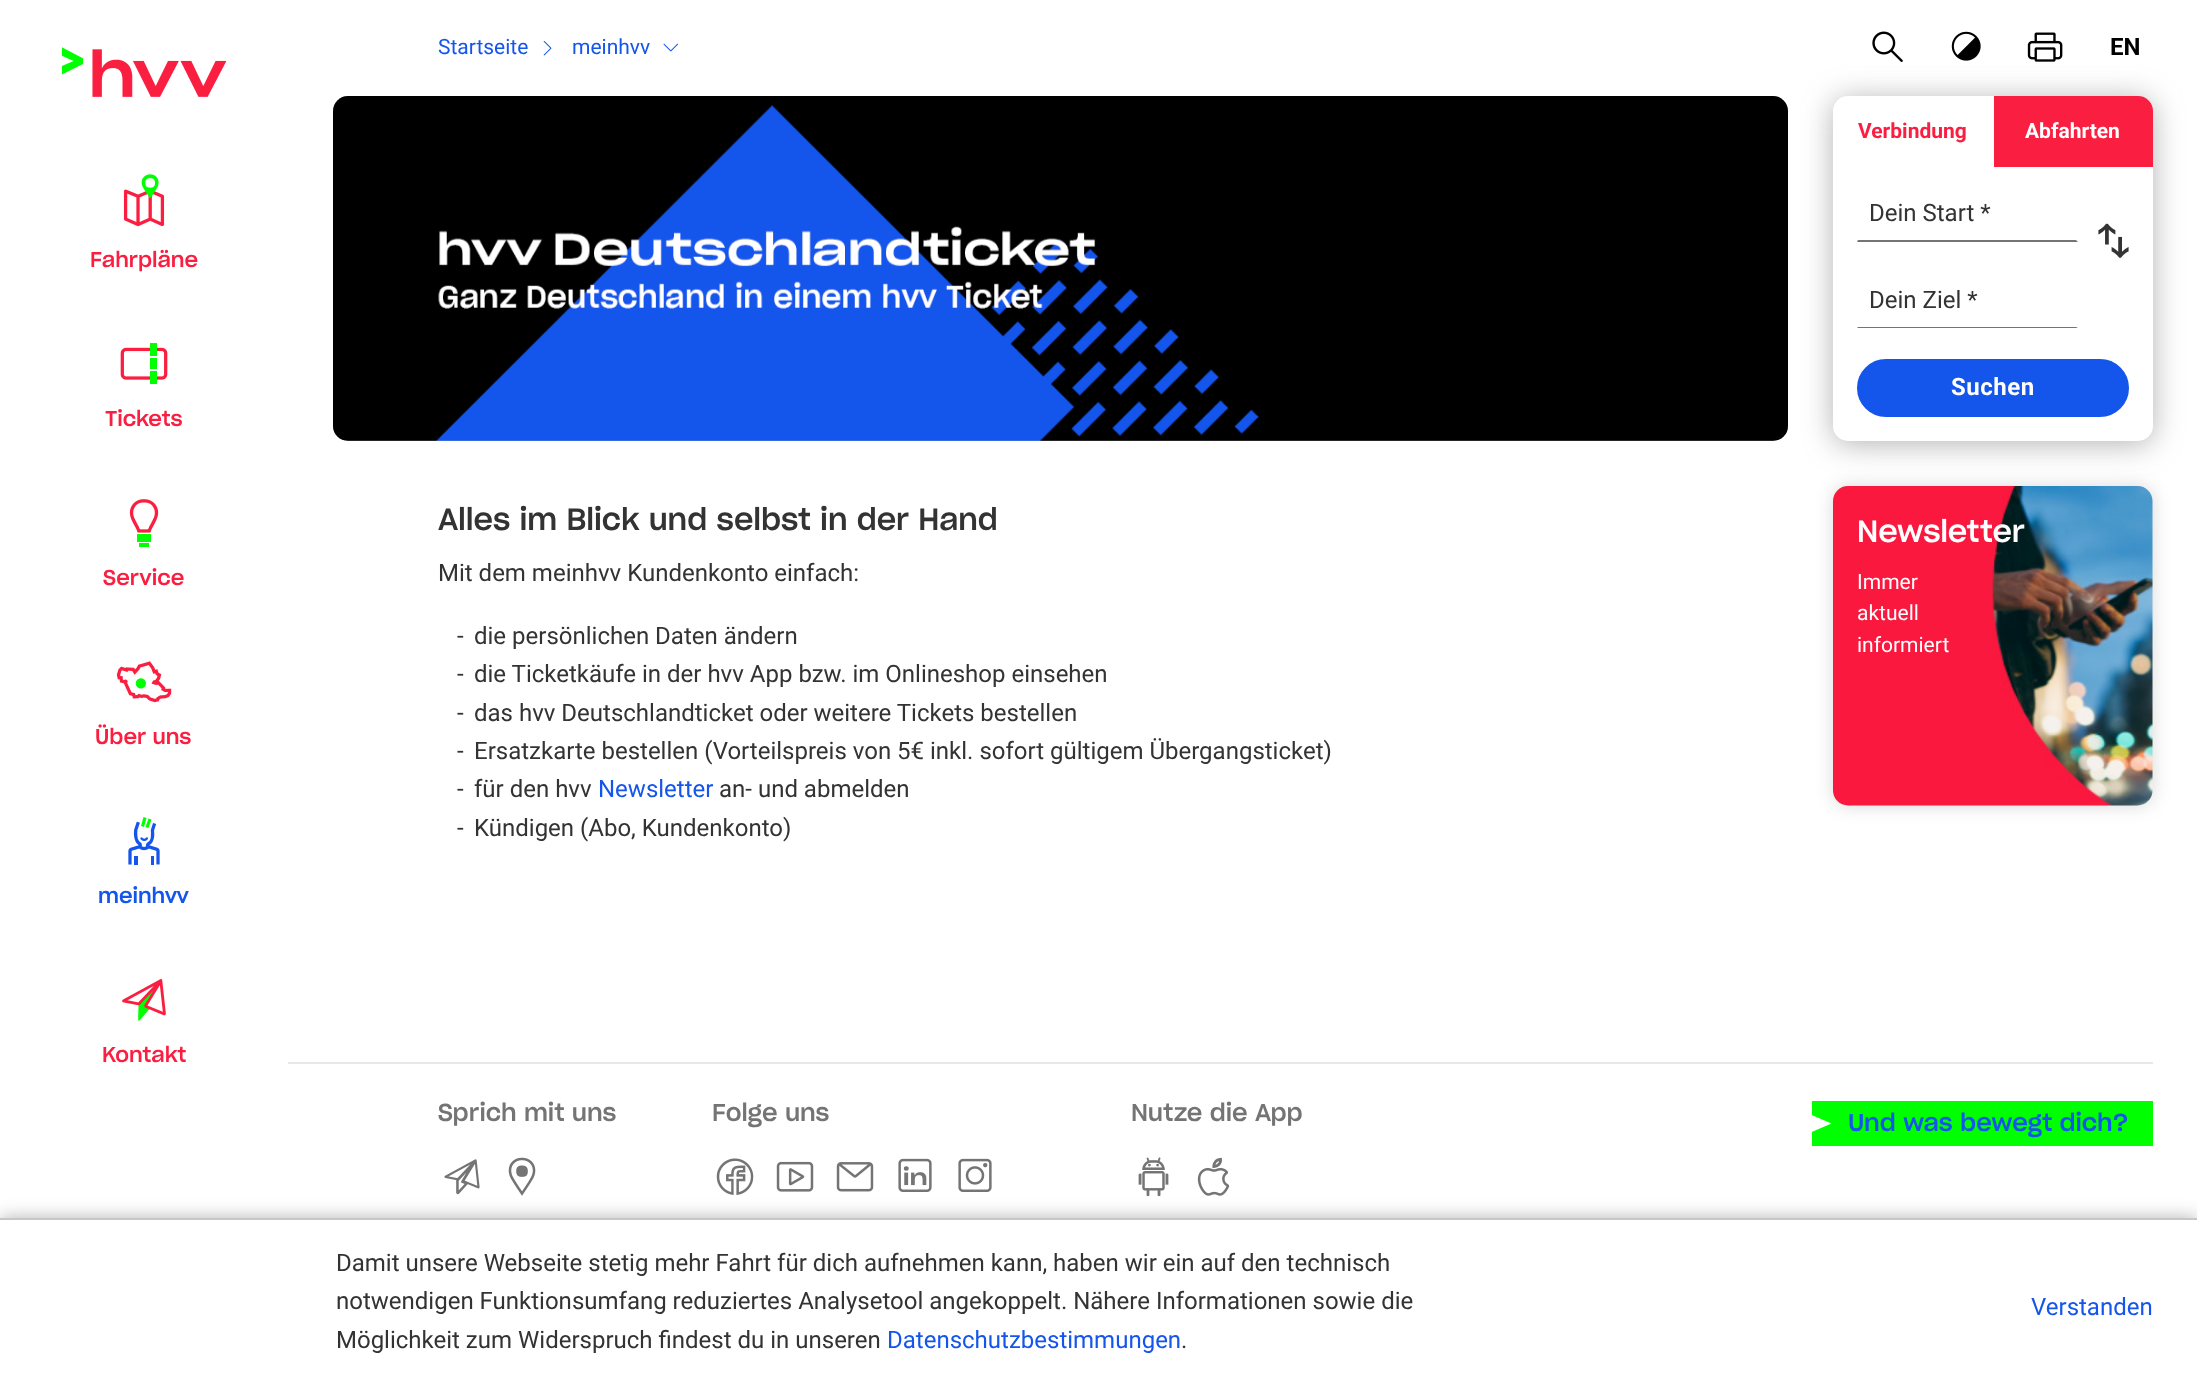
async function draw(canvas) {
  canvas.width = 2197
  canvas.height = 1395
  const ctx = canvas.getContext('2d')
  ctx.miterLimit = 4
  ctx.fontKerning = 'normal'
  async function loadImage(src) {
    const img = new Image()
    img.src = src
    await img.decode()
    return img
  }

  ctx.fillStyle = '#fff'
  ctx.fillRect(0, 0, 2197, 1395)
  ctx.font = '21px Roboto'
  ctx.fillStyle = '#1455eb'
  ctx.fillText('Startseite', 438, 54)
  ctx.drawImage(await loadImage('image0.png'), 543, 40, 9, 16)
  ctx.fillText('meinhvv', 572, 54)
  ctx.drawImage(await loadImage('image1.png'), 663, 43, 15, 9)
  ctx.drawImage(await loadImage('image2.png'), 1872, 31, 31, 31)
  ctx.drawImage(await loadImage('image3.png'), 1951, 31, 30, 30)
  ctx.drawImage(await loadImage('image4.png'), 2027, 32, 36, 30)
  ctx.font = 'bold 24px Roboto'
  ctx.fillStyle = '#000'
  ctx.fillText('EN', 2110, 55)
  ctx.drawImage(await loadImage('image5.png'), 62, 47, 165, 50)
  ctx.drawImage(await loadImage('image7.png'), 123, 189, 42, 38)
  ctx.drawImage(await loadImage('image6.png'), 141, 174, 18, 25)
  ctx.font = '500 21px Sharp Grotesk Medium'
  ctx.fillStyle = '#fa1e41'
  ctx.fillText('Fahrpläne', 90, 267)
  ctx.drawImage(await loadImage('image8.png'), 120, 347, 48, 33)
  ctx.fillStyle = '#0f0'
  ctx.fillRect(150, 343, 7, 13)
  ctx.fillRect(150, 358, 7, 11)
  ctx.fillRect(150, 371, 7, 13)
  ctx.fillStyle = '#fa1e41'
  ctx.fillText('Tickets', 105, 426)
  ctx.drawImage(await loadImage('image9.png'), 129, 499, 30, 34)
  ctx.fillStyle = '#0f0'
  ctx.fillRect(137, 534, 14, 8)
  ctx.fillRect(139, 543, 10, 4)
  ctx.fillStyle = '#fa1e41'
  ctx.fillText('Service', 103, 585)
  ctx.drawImage(await loadImage('image10.png'), 116, 661, 56, 42)
  ctx.drawImage(await loadImage('image11.png'), 135, 678, 11, 11)
  ctx.fillText('Über uns', 95, 744)
  ctx.fillStyle = '#0f0'
  ctx.beginPath()
  ctx.moveTo(141, 826)
  ctx.lineTo(143.5, 817)
  ctx.lineTo(146.5, 818)
  ctx.lineTo(144, 827)
  ctx.closePath()
  ctx.fill()
  ctx.beginPath()
  ctx.moveTo(145.5, 827)
  ctx.lineTo(148.5, 818.5)
  ctx.lineTo(151.5, 819.5)
  ctx.lineTo(148.5, 828)
  ctx.closePath()
  ctx.fill()
  ctx.drawImage(await loadImage('image12.png'), 128, 821, 32, 44)
  ctx.drawImage(await loadImage('image13.png'), 140, 837, 8, 4)
  ctx.fillStyle = '#1455eb'
  ctx.fillRect(134, 856, 4, 9)
  ctx.fillRect(151, 856, 3, 9)
  ctx.fillText('meinhvv', 98, 903)
  ctx.fillStyle = '#0f0'
  ctx.beginPath()
  ctx.moveTo(144.5, 1006.5)
  ctx.lineTo(156.5, 986.5)
  ctx.bezierCurveTo(156.5, 986, 156.5, 986, 156, 986)
  ctx.lineTo(138.5, 1005)
  ctx.bezierCurveTo(138.5, 1015, 137.5, 1020.5, 139, 1021)
  ctx.lineTo(149.5, 1009)
  ctx.closePath()
  ctx.fill()
  ctx.drawImage(await loadImage('image14.png'), 122, 978, 44, 38)
  ctx.fillStyle = '#fa1e41'
  ctx.fillText('Kontakt', 102, 1062)
  ctx.fillStyle = '#c7c7c7'
  ctx.beginPath()
  ctx.roundRect(333, 96, 1455, 345, 15)
  ctx.fill()
  ctx.drawImage(await loadImage('image15.png'), 333, 96, 1455, 345)
  ctx.fillStyle = '#66666680'
  ctx.filter = 'blur(15px)'
  ctx.beginPath()
  ctx.roundRect(1833, 99, 320, 345, 15)
  ctx.fill()
  ctx.filter = 'none'
  ctx.fillStyle = '#fff'
  ctx.beginPath()
  ctx.roundRect(1833, 96, 161, 71, [15, 0, 0, 0])
  ctx.fill()
  ctx.font = 'bold 21px Roboto'
  ctx.fillStyle = '#fa1e41'
  ctx.fillText('Verbindung', 1858, 138)
  ctx.beginPath()
  ctx.roundRect(1994, 96, 159, 71, [0, 15, 0, 0])
  ctx.fill()
  ctx.fillStyle = '#fff'
  ctx.fillText('Abfahrten', 2025, 138)
  ctx.beginPath()
  ctx.roundRect(1833, 167, 320, 274, [0, 0, 15, 15])
  ctx.fill()
  ctx.font = '24px Roboto'
  ctx.fillStyle = '#333'
  ctx.fillText('Dein Start *', 1869, 221)
  ctx.fillStyle = '#747474'
  ctx.beginPath()
  ctx.moveTo(2078, 242)
  ctx.lineTo(1857, 242)
  ctx.lineTo(1858, 240)
  ctx.lineTo(2076, 240)
  ctx.closePath()
  ctx.fill()
  ctx.drawImage(await loadImage('image16.png'), 2098, 223, 31, 35)
  ctx.fillStyle = '#333'
  ctx.fillText('Dein Ziel *', 1869, 308)
  ctx.fillStyle = '#747474'
  ctx.beginPath()
  ctx.moveTo(2078, 328)
  ctx.lineTo(1857, 328)
  ctx.lineTo(1858, 327)
  ctx.lineTo(2076, 327)
  ctx.closePath()
  ctx.fill()
  ctx.fillStyle = '#1455eb'
  ctx.beginPath()
  ctx.roundRect(1858.5, 360.5, 269, 55, 27.5)
  ctx.fill()
  ctx.strokeStyle = '#1455eb'
  ctx.lineWidth = 3
  ctx.stroke()
  ctx.letterSpacing = '0.5px'
  ctx.font = 'bold 24px Roboto'
  ctx.fillStyle = '#fff'
  ctx.fillText('Suchen', 1951, 395)
  ctx.letterSpacing = '0px'
  ctx.font = '500 30px Sharp Grotesk Medium'
  ctx.fillStyle = '#333'
  ctx.fillText('Alles im Blick und selbst in der Hand', 438, 530)
  ctx.font = '24px Roboto'
  ctx.fillText('Mit dem meinhvv Kundenkonto einfach:', 438, 581)
  ctx.fillText('-', 457, 644)
  ctx.fillText('die persönlichen Daten ändern', 474, 644)
  ctx.fillText('-', 457, 682)
  ctx.fillText('die Ticketkäufe in der hvv App bzw. im Onlineshop einsehen', 474, 682)
  ctx.fillText('-', 457, 721)
  ctx.fillText('das hvv Deutschlandticket oder weitere Tickets bestellen', 474, 721)
  ctx.fillText('-', 457, 759)
  ctx.fillText('Ersatzkarte bestellen (Vorteilspreis von 5€ inkl. sofort gültigem Übergangsticket)', 474, 759)
  ctx.fillText('-', 457, 797)
  ctx.fillText('für den hvv', 474, 797)
  ctx.fillStyle = '#1455eb'
  ctx.fillText('Newsletter', 598, 797)
  ctx.fillStyle = '#333'
  ctx.fillText('an- und abmelden', 719, 797)
  ctx.fillText('-', 457, 836)
  ctx.fillText('Kündigen (Abo, Kundenkonto)', 474, 836)
  ctx.fillStyle = '#00000026'
  ctx.filter = 'blur(9px)'
  ctx.beginPath()
  ctx.roundRect(1833, 486, 320, 320, 15)
  ctx.fill()
  ctx.filter = 'none'
  ctx.drawImage(await loadImage('image17.png'), 1833, 486, 320, 320)
  ctx.font = '500 30px Sharp Grotesk Medium'
  ctx.fillStyle = '#fff'
  ctx.fillText('Newsletter', 1857, 542)
  ctx.font = '21px Roboto'
  ctx.fillText('Immer', 1857, 589)
  ctx.fillText('aktuell', 1857, 620)
  ctx.fillText('informiert', 1857, 652)
  ctx.fillStyle = '#e8e8e8'
  ctx.fillRect(288, 1062, 1865, 2)
  ctx.font = '500 24px Sharp Grotesk Medium'
  ctx.fillStyle = '#747474'
  ctx.fillText('Sprich mit uns', 438, 1121)
  ctx.drawImage(await loadImage('image18.png'), 444, 1159, 36, 36)
  ctx.drawImage(await loadImage('image19.png'), 508, 1157, 28, 39)
  ctx.fillText('Folge uns', 712, 1121)
  ctx.drawImage(await loadImage('image20.png'), 716, 1158, 38, 37)
  ctx.drawImage(await loadImage('image21.png'), 776, 1161, 38, 31)
  ctx.drawImage(await loadImage('image22.png'), 836, 1162, 38, 30)
  ctx.drawImage(await loadImage('image23.png'), 898, 1158, 34, 34)
  ctx.drawImage(await loadImage('image24.png'), 958, 1158, 34, 34)
  ctx.fillText('Nutze die App', 1131, 1121)
  ctx.drawImage(await loadImage('image25.png'), 1138, 1157, 31, 40)
  ctx.drawImage(await loadImage('image26.png'), 1197, 1157, 33, 39)
  ctx.fillStyle = '#0f0'
  ctx.fillRect(1812, 1101, 341, 45)
  ctx.fillStyle = '#fff'
  ctx.beginPath()
  ctx.moveTo(1810.5, 1132.5)
  ctx.lineTo(1810.5, 1114.5)
  ctx.lineTo(1831.5, 1123.5)
  ctx.closePath()
  ctx.fill()
  ctx.fillStyle = '#1455eb'
  ctx.fillText('Und was bewegt dich?', 1848, 1131)
  ctx.fillStyle = '#0000004d'
  ctx.filter = 'blur(9px)'
  ctx.beginPath()
  ctx.rect(0, 1218, 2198, 177)
  ctx.fill()
  ctx.filter = 'none'
  ctx.fillStyle = '#fff'
  ctx.fillRect(0, 1220, 2197, 175)
  ctx.fillStyle = '#c7c7c7'
  ctx.fillRect(0, 1218, 2197, 2)
  ctx.font = '24px Roboto'
  ctx.fillStyle = '#333'
  ctx.fillText('Damit unsere Webseite stetig mehr Fahrt für dich aufnehmen kann, haben wir ein auf den technisch', 336, 1271)
  ctx.fillText('notwendigen Funktionsumfang reduziertes Analysetool angekoppelt. Nähere Informationen sowie die', 336, 1309)
  ctx.fillText('Möglichkeit zum Widerspruch findest du in unseren', 336, 1348)
  ctx.fillStyle = '#1455eb'
  ctx.fillText('Datenschutzbestimmungen', 887, 1348)
  ctx.fillStyle = '#333'
  ctx.fillText('.', 1181, 1348)
  ctx.fillStyle = '#1455eb'
  ctx.fillText('Verstanden', 2031, 1315)
}

draw(document.querySelector('canvas'))
